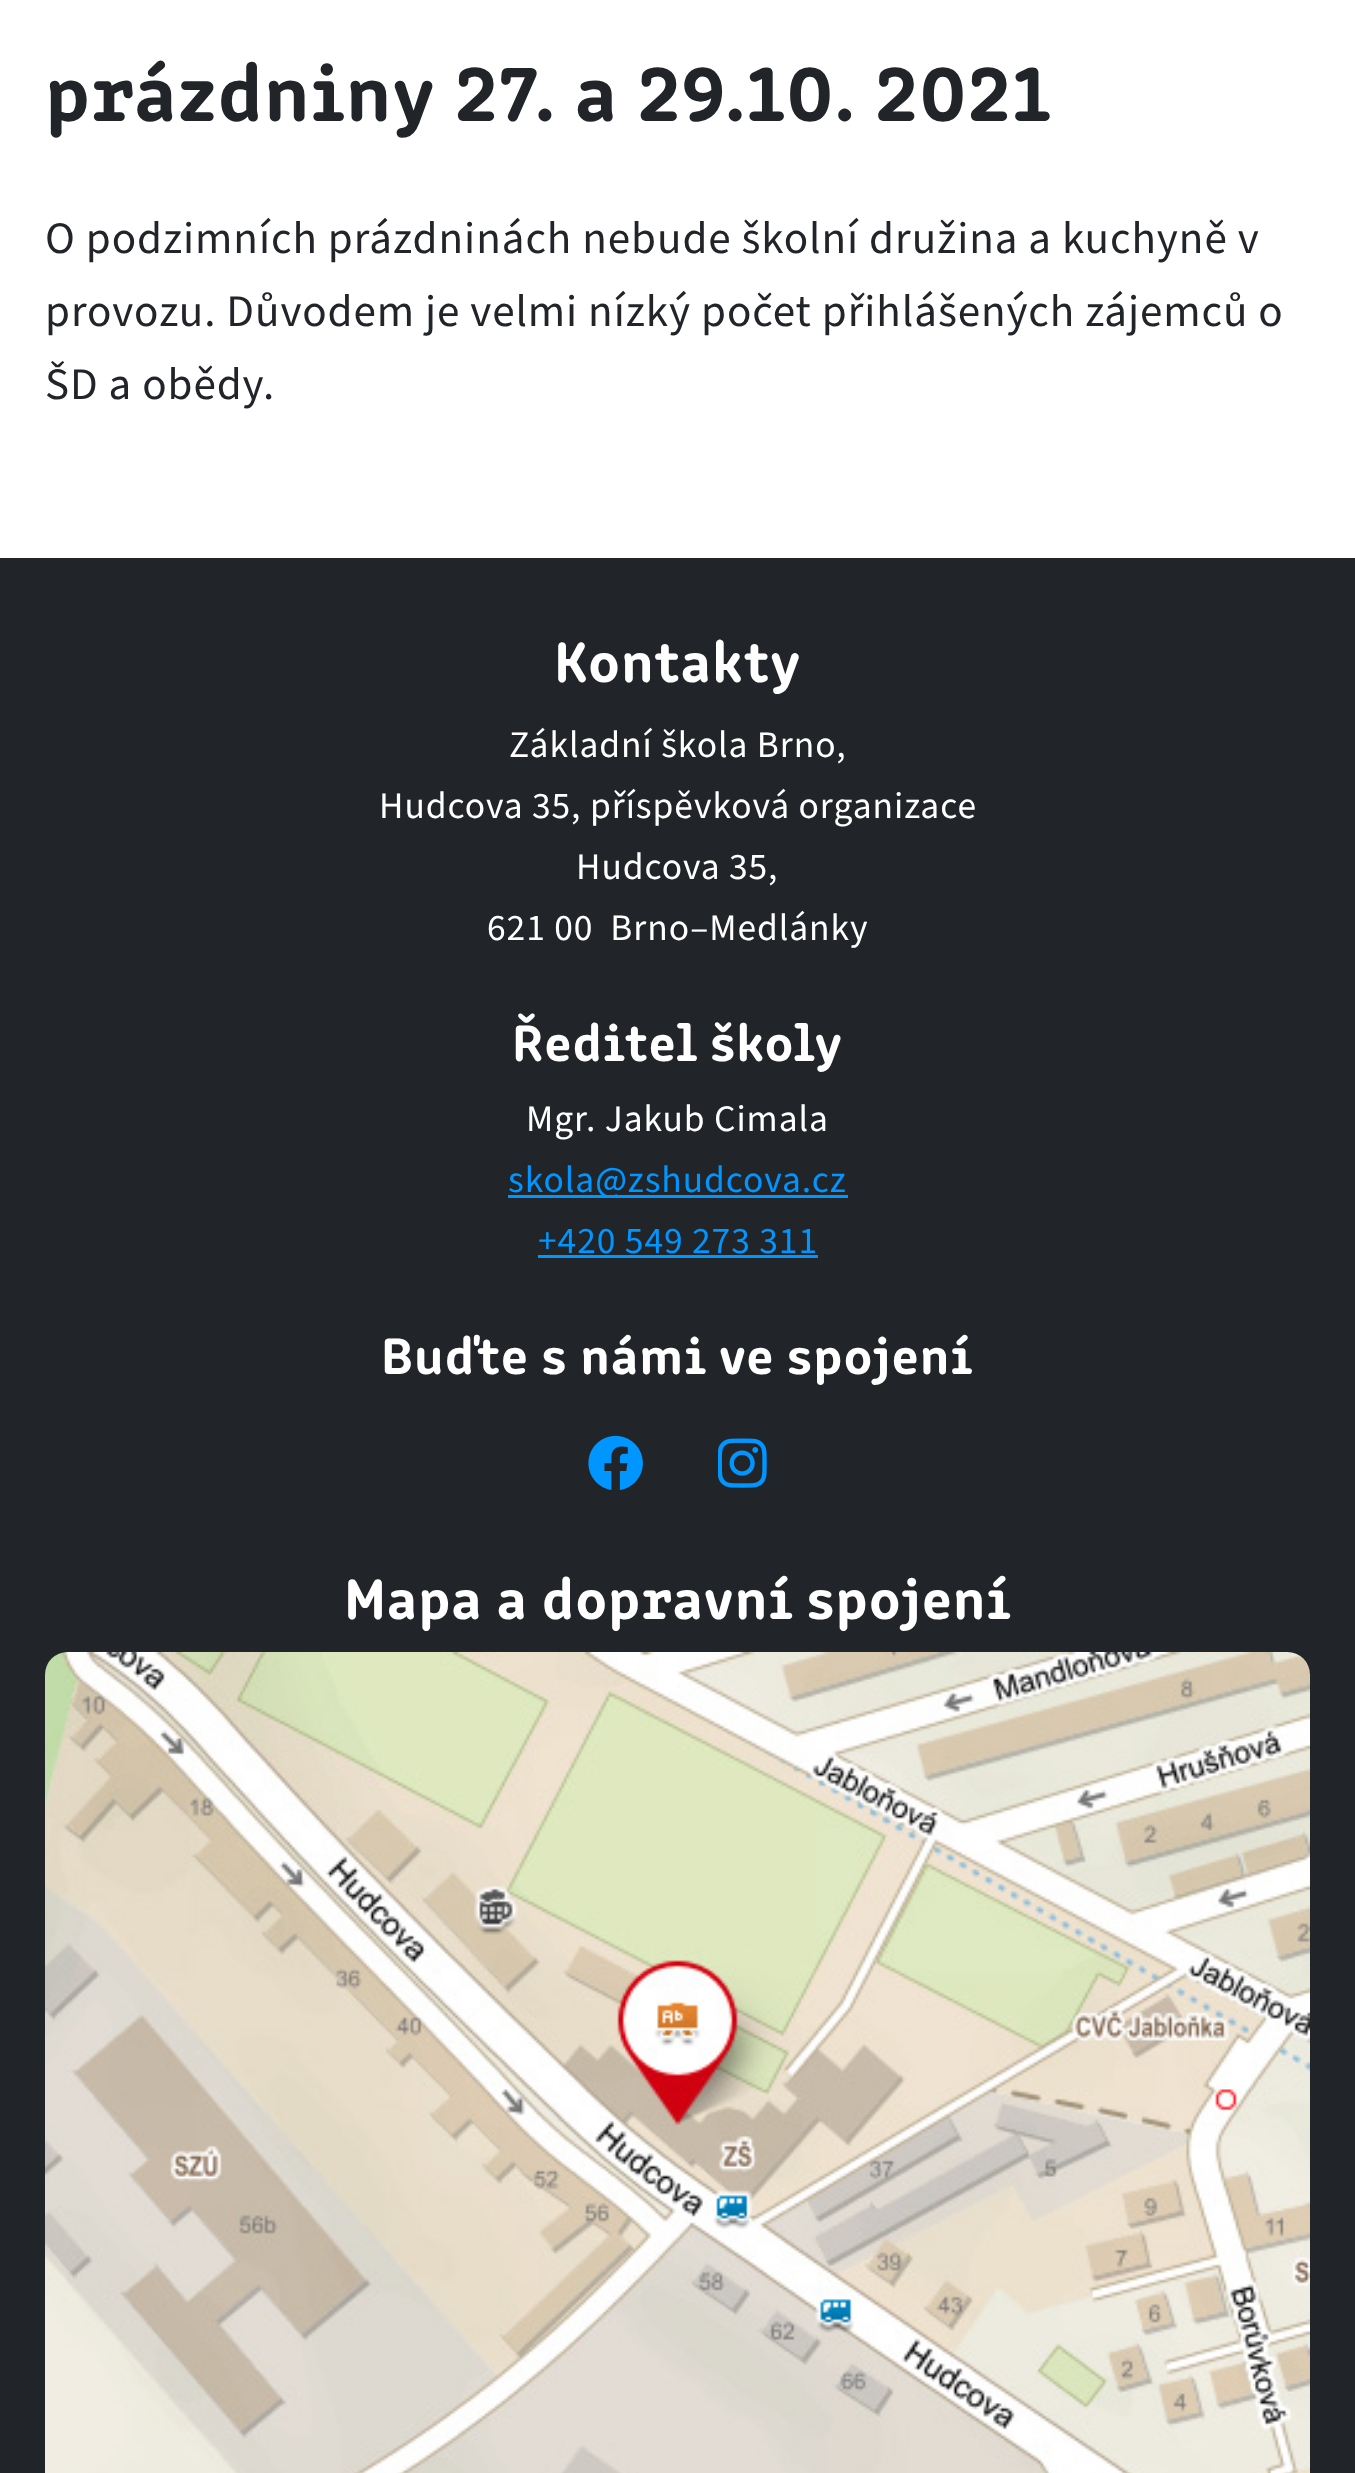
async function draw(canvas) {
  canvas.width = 1355
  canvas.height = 2473
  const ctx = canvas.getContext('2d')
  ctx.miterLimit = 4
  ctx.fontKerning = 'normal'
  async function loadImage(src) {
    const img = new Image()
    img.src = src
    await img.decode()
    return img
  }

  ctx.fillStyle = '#fff'
  ctx.fillRect(0, 0, 1355, 2473)
  ctx.letterSpacing = '0.95px'
  ctx.font = 'bold 81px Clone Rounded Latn'
  ctx.fillStyle = '#212529'
  ctx.fillText('prázdniny 27. a 29.10. 2021', 45, 121)
  ctx.font = '45px Source Sans Pro'
  ctx.fillText('O podzimních prázdninách nebude školní družina a kuchyně v', 45, 253)
  ctx.fillText('provozu. Důvodem je velmi nízký počet přihlášených zájemců o', 45, 326)
  ctx.fillText('ŠD a obědy.', 45, 399)
  ctx.fillRect(0, 558, 1355, 1915)
  ctx.font = 'bold 58px Clone Rounded Latn'
  ctx.fillStyle = '#fff'
  ctx.fillText('Kontakty', 554, 682)
  ctx.font = '37.5px Source Sans Pro'
  ctx.fillText('Základní škola Brno,', 509, 757)
  ctx.fillText('Hudcova 35, příspěvková organizace', 379, 818)
  ctx.fillText('Hudcova 35,', 576, 879)
  ctx.fillText('621 00  Brno–Medlánky', 487, 940)
  ctx.font = 'bold 52.5px Clone Rounded Latn'
  ctx.fillText('Ředitel školy', 512, 1061)
  ctx.font = '37.5px Source Sans Pro'
  ctx.fillText('Mgr. Jakub Cimala', 526, 1131)
  ctx.fillStyle = '#0095ff'
  ctx.fillRect(508, 1195, 340, 3)
  ctx.fillText('skola@zshudcova.cz', 508, 1192)
  ctx.fillText('+420 549 273 311', 538, 1253)
  ctx.fillRect(538, 1255, 280, 3)
  ctx.font = 'bold 52.5px Clone Rounded Latn'
  ctx.fillStyle = '#fff'
  ctx.fillText('Buďte s námi ve spojení', 381, 1374)
  ctx.drawImage(await loadImage('image0.png'), 588, 1435, 55, 55)
  ctx.drawImage(await loadImage('image1.png'), 718, 1438, 49, 50)
  ctx.font = 'bold 58px Clone Rounded Latn'
  ctx.fillText('Mapa a dopravní spojení', 344, 1619)
  ctx.drawImage(await loadImage('image2.png'), 45, 1652, 1265, 821)
}

draw(document.querySelector('canvas'))
